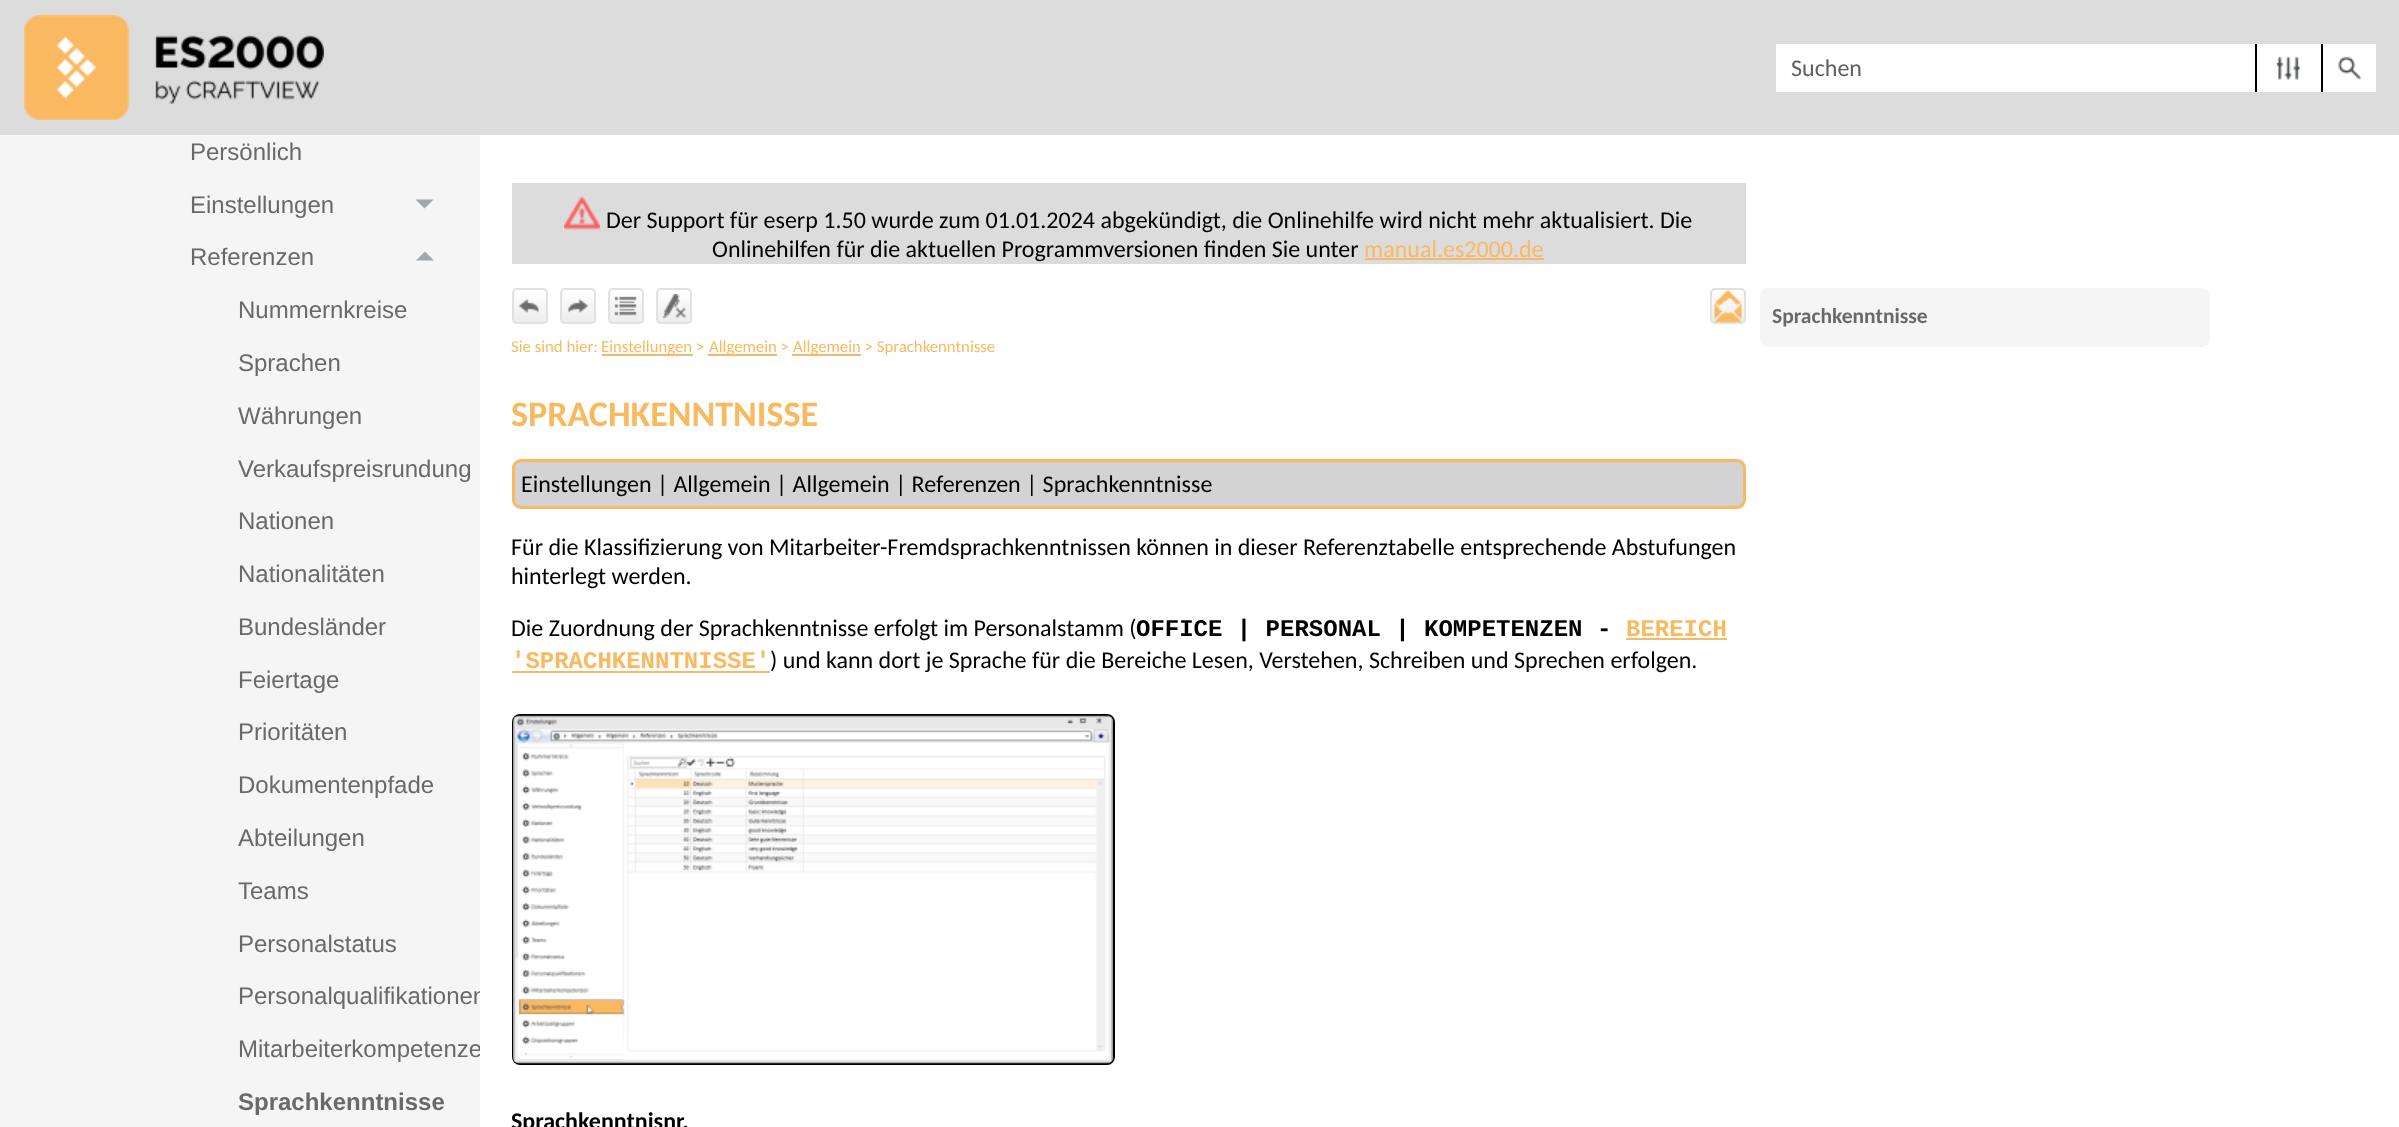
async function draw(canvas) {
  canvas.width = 2399
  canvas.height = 1127
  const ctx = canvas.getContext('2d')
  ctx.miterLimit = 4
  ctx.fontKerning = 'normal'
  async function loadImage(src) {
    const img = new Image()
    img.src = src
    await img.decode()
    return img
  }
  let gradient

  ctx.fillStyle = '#fff'
  ctx.fillRect(0, 0, 2399, 1127)
  ctx.fillStyle = '#dcdcdc'
  ctx.fillRect(0, 0, 2399, 135)
  ctx.drawImage(await loadImage('image0.png'), 24, 15, 300, 105)
  ctx.fillStyle = '#fff'
  ctx.fillRect(1776, 44, 600, 48)
  ctx.font = '24px Carlito'
  ctx.fillStyle = '#5f5f5f'
  ctx.fillText('Suchen', 1791, 76)
  ctx.drawImage(await loadImage('image1.png'), 2276, 56, 24, 24)
  ctx.fillStyle = '#000'
  ctx.fillRect(2321, 44, 2, 48)
  ctx.fillRect(2255, 44, 2, 48)
  ctx.drawImage(await loadImage('image2.png'), 2338, 56, 24, 24)
  ctx.fillStyle = '#f5f5f5'
  ctx.fillRect(0, 135, 480, 992)
  ctx.font = '24px Liberation Sans'
  ctx.fillStyle = '#696969'
  ctx.fillText('Persönlich', 190, 160)
  ctx.fillText('Einstellungen', 190, 213)
  ctx.fillStyle = '#a1a8ac'
  ctx.beginPath()
  ctx.moveTo(415.5, 199.5)
  ctx.lineTo(433.5, 199.5)
  ctx.lineTo(424.5, 208.5)
  ctx.closePath()
  ctx.fill()
  ctx.fillStyle = '#696969'
  ctx.fillText('Referenzen', 190, 265)
  ctx.fillStyle = '#a1a8ac'
  ctx.beginPath()
  ctx.moveTo(416, 260.5)
  ctx.lineTo(434, 260.5)
  ctx.lineTo(425, 251.5)
  ctx.closePath()
  ctx.fill()
  ctx.fillStyle = '#696969'
  ctx.fillText('Nummernkreise', 238, 318)
  ctx.fillText('Sprachen', 238, 371)
  ctx.fillText('Währungen', 238, 424)
  ctx.fillText('Verkaufspreisrundung', 238, 477)
  ctx.fillText('Nationen', 238, 529)
  ctx.fillText('Nationalitäten', 238, 582)
  ctx.fillText('Bundesländer', 238, 635)
  ctx.fillText('Feiertage', 238, 688)
  ctx.fillText('Prioritäten', 238, 740)
  ctx.fillText('Dokumentenpfade', 238, 793)
  ctx.fillText('Abteilungen', 238, 846)
  ctx.fillText('Teams', 238, 899)
  ctx.fillText('Personalstatus', 238, 952)
  ctx.save()
  ctx.beginPath()
  ctx.rect(0, 135, 480, 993)
  ctx.clip()
  ctx.fillText('Personalqualifikationen', 238, 1004)
  ctx.fillText('Mitarbeiterkompetenze', 238, 1057)
  ctx.restore()
  ctx.font = 'bold 24px Liberation Sans'
  ctx.fillText('Sprachkenntnisse', 238, 1110)
  ctx.fillStyle = '#dcdcdc'
  ctx.fillRect(512, 183, 1234, 81)
  ctx.drawImage(await loadImage('image3.png'), 564, 196, 36, 34)
  ctx.font = '24px Carlito'
  ctx.fillStyle = '#000'
  ctx.fillText('Der Support für eserp 1.50 wurde zum 01.01.2024 abgekündigt, die Onlinehilfe wird nicht mehr aktualisiert. Die', 606, 228)
  ctx.fillText('Onlinehilfen für die aktuellen Programmversionen finden Sie unter', 712, 257)
  ctx.fillStyle = '#f9b961'
  ctx.fillText('manual.es2000.de', 1364, 257)
  ctx.fillRect(1365, 258, 179, 2)
  ctx.fillStyle = '#f5f5f5'
  ctx.beginPath()
  ctx.roundRect(1760, 288, 450, 59, 8)
  ctx.fill()
  ctx.font = 'bold 21.5px Carlito'
  ctx.fillStyle = '#696969'
  ctx.fillText('Sprachkenntnisse', 1772, 323)
  ctx.save()
  ctx.beginPath()
  ctx.roundRect(512, 288, 36, 36, 5)
  ctx.clip()
  gradient = ctx.createLinearGradient(530, 290, 530, 323)
  gradient.addColorStop(0, '#fff')
  gradient.addColorStop(1, '#ececec')
  ctx.fillStyle = gradient
  ctx.fillRect(512, 290, 36, 33)
  ctx.restore()
  ctx.beginPath()
  ctx.roundRect(513, 289, 34, 34, 4)
  ctx.strokeStyle = '#e1e1e1'
  ctx.lineWidth = 2
  ctx.stroke()
  ctx.drawImage(await loadImage('image4.png'), 518, 298, 21, 16)
  ctx.save()
  ctx.beginPath()
  ctx.roundRect(560, 288, 36, 36, 5)
  ctx.clip()
  gradient = ctx.createLinearGradient(578, 290, 578, 323)
  gradient.addColorStop(0, '#fff')
  gradient.addColorStop(1, '#ececec')
  ctx.fillStyle = gradient
  ctx.fillRect(560, 290, 36, 33)
  ctx.restore()
  ctx.beginPath()
  ctx.roundRect(561, 289, 34, 34, 4)
  ctx.stroke()
  ctx.drawImage(await loadImage('image5.png'), 568, 298, 21, 16)
  ctx.save()
  ctx.beginPath()
  ctx.roundRect(608, 288, 36, 36, 5)
  ctx.clip()
  gradient = ctx.createLinearGradient(626, 290, 626, 323)
  gradient.addColorStop(0, '#fff')
  gradient.addColorStop(1, '#ececec')
  ctx.fillStyle = gradient
  ctx.fillRect(608, 290, 36, 33)
  ctx.restore()
  ctx.beginPath()
  ctx.roundRect(609, 289, 34, 34, 4)
  ctx.stroke()
  ctx.drawImage(await loadImage('image6.png'), 614, 296, 23, 20)
  ctx.save()
  ctx.beginPath()
  ctx.roundRect(656, 288, 36, 36, 5)
  ctx.clip()
  gradient = ctx.createLinearGradient(674, 290, 674, 323)
  gradient.addColorStop(0, '#fff')
  gradient.addColorStop(1, '#ececec')
  ctx.fillStyle = gradient
  ctx.fillRect(656, 290, 36, 33)
  ctx.restore()
  ctx.beginPath()
  ctx.roundRect(657, 289, 34, 34, 4)
  ctx.stroke()
  ctx.drawImage(await loadImage('image7.png'), 662, 294, 24, 24)
  ctx.save()
  ctx.beginPath()
  ctx.roundRect(1710, 288, 36, 36, 5)
  ctx.clip()
  gradient = ctx.createLinearGradient(1728, 290, 1728, 323)
  gradient.addColorStop(0, '#fff')
  gradient.addColorStop(1, '#ececec')
  ctx.fillStyle = gradient
  ctx.fillRect(1710, 290, 36, 33)
  ctx.restore()
  ctx.beginPath()
  ctx.roundRect(1711, 289, 34, 34, 4)
  ctx.stroke()
  ctx.drawImage(await loadImage('image8.png'), 1714, 289, 28, 34)
  ctx.font = '16.75px Carlito'
  ctx.fillStyle = '#f9b961'
  ctx.fillText('Sie sind hier:', 511, 352)
  ctx.fillRect(602, 354, 91, 2)
  ctx.fillText('Einstellungen >', 601, 352)
  ctx.fillRect(708, 354, 69, 2)
  ctx.fillText('Allgemein >', 709, 352)
  ctx.fillRect(792, 354, 69, 2)
  ctx.fillText('Allgemein > Sprachkenntnisse', 793, 352)
  ctx.font = 'bold 36px Carlito'
  ctx.fillText('SPRACHKENNTNISSE', 511, 426)
  ctx.fillStyle = '#d3d3d3'
  ctx.beginPath()
  ctx.roundRect(513.5, 460.5, 1231, 47, 7.5)
  ctx.fill()
  ctx.strokeStyle = '#f9b961'
  ctx.lineWidth = 3
  ctx.stroke()
  ctx.font = '24px Carlito'
  ctx.fillStyle = '#000'
  ctx.fillText('Einstellungen | Allgemein | Allgemein | Referenzen | Sprachkenntnisse', 521, 492)
  ctx.fillText('Für die Klassifizierung von Mitarbeiter-Fremdsprachkenntnissen können in dieser Referenztabelle entsprechende Abstufungen', 511, 555)
  ctx.fillText('hinterlegt werden.', 511, 584)
  ctx.fillText('Die Zuordnung der Sprachkenntnisse erfolgt im Personalstamm (', 511, 636)
  ctx.font = 'bold 24px Liberation Mono'
  ctx.fillText('OFFICE | PERSONAL | KOMPETENZEN -', 1136, 636)
  ctx.fillStyle = '#f9b961'
  ctx.fillText('BEREICH', 1626, 636)
  ctx.fillRect(1626, 638, 101, 2)
  ctx.fillText('\'SPRACHKENNTNISSE\'', 511, 668)
  ctx.fillRect(512, 671, 258, 2)
  ctx.font = '24px Carlito'
  ctx.fillStyle = '#000'
  ctx.fillText(') und kann dort je Sprache für die Bereiche Lesen, Verstehen, Schreiben und Sprechen erfolgen.', 770, 668)
  ctx.beginPath()
  ctx.roundRect(513, 715, 601, 349, 7)
  ctx.strokeStyle = '#000'
  ctx.lineWidth = 2
  ctx.stroke()
  ctx.drawImage(await loadImage('image9.png'), 513, 715, 600, 349)
  ctx.font = 'bold 24px Carlito'
  ctx.fillText('Sprachkenntnisnr.', 511, 1129)
}

draw(document.querySelector('canvas'))
